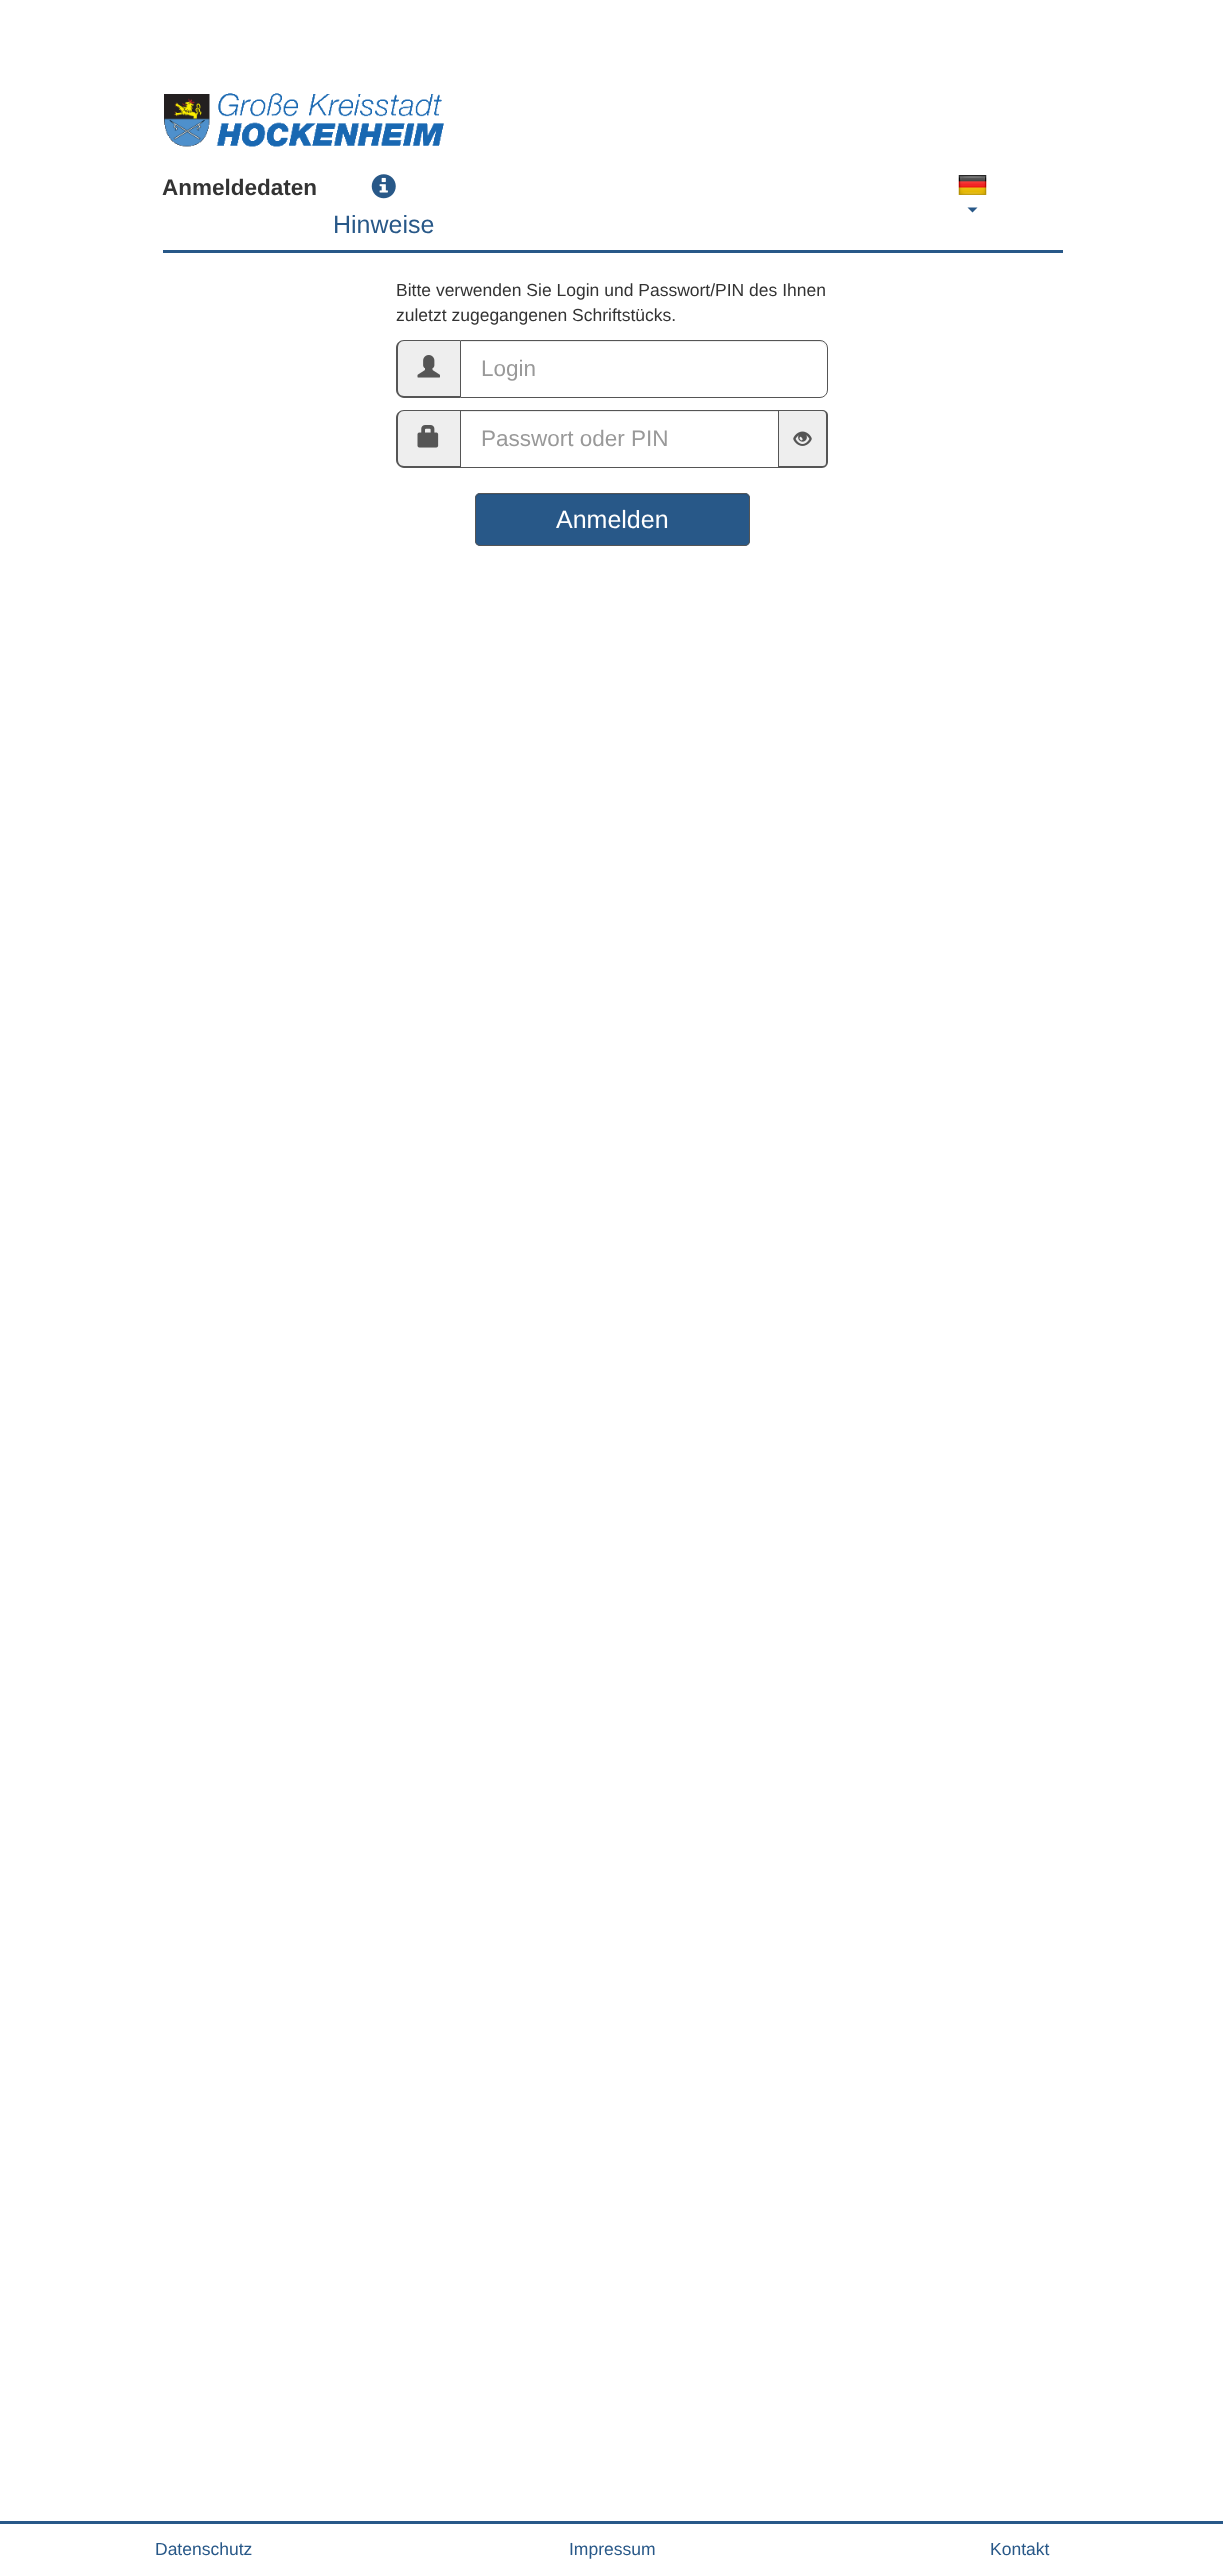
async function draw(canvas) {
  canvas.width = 1223
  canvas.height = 2571
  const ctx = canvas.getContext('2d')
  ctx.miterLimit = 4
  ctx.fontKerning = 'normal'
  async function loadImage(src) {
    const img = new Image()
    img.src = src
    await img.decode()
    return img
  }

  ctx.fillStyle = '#fff'
  ctx.fillRect(0, 0, 1223, 2571)
  ctx.drawImage(await loadImage('image0.png'), 164, 93, 280, 54)
  ctx.font = 'bold 22.5px Liberation Sans'
  ctx.fillStyle = '#333'
  ctx.fillText('Anmeldedaten', 162, 195)
  ctx.drawImage(await loadImage('image1.png'), 958, 175, 29, 20)
  ctx.fillStyle = '#285888'
  ctx.beginPath()
  ctx.moveTo(967.5, 207.5)
  ctx.lineTo(977.5, 207.5)
  ctx.lineTo(972.5, 212.5)
  ctx.closePath()
  ctx.fill()
  ctx.drawImage(await loadImage('image2.png'), 371, 174, 25, 25)
  ctx.font = '25px Liberation Sans'
  ctx.fillText('Hinweise', 333, 233)
  ctx.fillRect(163, 250, 900, 3)
  ctx.font = '17.5px Liberation Sans'
  ctx.fillStyle = '#333'
  ctx.fillText('Bitte verwenden Sie Login und Passwort/PIN des Ihnen', 396, 296)
  ctx.fillText('zuletzt zugegangenen Schriftstücks.', 396, 321)
  ctx.fillStyle = '#eee'
  ctx.beginPath()
  ctx.roundRect(396, 340, 64, 58, [8, 0, 0, 8])
  ctx.fill()
  ctx.fillStyle = '#555'
  ctx.beginPath()
  ctx.moveTo(404, 340)
  ctx.lineTo(460, 340)
  ctx.lineTo(460, 398)
  ctx.lineTo(404, 398)
  ctx.bezierCurveTo(400, 398, 396, 394, 396, 390)
  ctx.lineTo(396, 348)
  ctx.bezierCurveTo(396, 343, 400, 340, 404, 340)
  ctx.closePath()
  ctx.moveTo(404, 341)
  ctx.lineTo(460, 341)
  ctx.lineTo(460, 396)
  ctx.lineTo(404, 396)
  ctx.bezierCurveTo(400, 396, 398, 393, 398, 390)
  ctx.lineTo(398, 348)
  ctx.bezierCurveTo(398, 344, 400, 341, 404, 341)
  ctx.closePath()
  ctx.fill('evenodd')
  ctx.drawImage(await loadImage('image3.png'), 417, 355, 23, 23)
  ctx.fillStyle = '#ececec'
  ctx.beginPath()
  ctx.moveTo(461, 342)
  ctx.lineTo(820, 342)
  ctx.bezierCurveTo(823, 342, 826, 345, 826, 349)
  ctx.lineTo(826, 347)
  ctx.bezierCurveTo(826, 344, 823, 341, 820, 341)
  ctx.lineTo(461, 341)
  ctx.closePath()
  ctx.fill()
  ctx.beginPath()
  ctx.roundRect(460.5, 340.5, 367, 57, [0, 7.5, 7.5, 0])
  ctx.strokeStyle = '#555'
  ctx.stroke()
  ctx.font = '22.5px Liberation Sans'
  ctx.fillStyle = '#999'
  ctx.fillText('Login', 481, 376)
  ctx.fillStyle = '#eee'
  ctx.beginPath()
  ctx.roundRect(396, 410, 64, 58, [8, 0, 0, 8])
  ctx.fill()
  ctx.fillStyle = '#555'
  ctx.beginPath()
  ctx.moveTo(404, 410)
  ctx.lineTo(460, 410)
  ctx.lineTo(460, 468)
  ctx.lineTo(404, 468)
  ctx.bezierCurveTo(400, 468, 396, 464, 396, 460)
  ctx.lineTo(396, 418)
  ctx.bezierCurveTo(396, 413, 400, 410, 404, 410)
  ctx.closePath()
  ctx.moveTo(404, 411)
  ctx.lineTo(460, 411)
  ctx.lineTo(460, 466)
  ctx.lineTo(404, 466)
  ctx.bezierCurveTo(400, 466, 398, 463, 398, 460)
  ctx.lineTo(398, 418)
  ctx.bezierCurveTo(398, 414, 400, 411, 404, 411)
  ctx.closePath()
  ctx.fill('evenodd')
  ctx.drawImage(await loadImage('image4.png'), 417, 425, 22, 23)
  ctx.fillStyle = '#ececec'
  ctx.fillRect(461, 411, 317, 1)
  ctx.strokeRect(460.5, 410.5, 318, 57)
  ctx.fillStyle = '#999'
  ctx.fillText('Passwort oder PIN', 481, 446)
  ctx.fillStyle = '#eee'
  ctx.beginPath()
  ctx.roundRect(779, 410, 49, 58, [0, 5, 5, 0])
  ctx.fill()
  ctx.fillStyle = '#555'
  ctx.beginPath()
  ctx.moveTo(779, 410)
  ctx.lineTo(822, 410)
  ctx.bezierCurveTo(825, 410, 828, 412, 828, 415)
  ctx.lineTo(828, 462)
  ctx.bezierCurveTo(828, 465, 825, 468, 822, 468)
  ctx.lineTo(779, 468)
  ctx.closePath()
  ctx.moveTo(779, 411)
  ctx.lineTo(822, 411)
  ctx.bezierCurveTo(825, 411, 826, 413, 826, 415)
  ctx.lineTo(826, 462)
  ctx.bezierCurveTo(826, 465, 825, 466, 822, 466)
  ctx.lineTo(779, 466)
  ctx.closePath()
  ctx.fill('evenodd')
  ctx.drawImage(await loadImage('image5.png'), 793, 431, 19, 15)
  ctx.fillStyle = '#285888'
  ctx.beginPath()
  ctx.roundRect(475, 493, 275, 53, 5)
  ctx.fill()
  ctx.fillStyle = '#25517e'
  ctx.beginPath()
  ctx.moveTo(480, 495)
  ctx.lineTo(745, 495)
  ctx.bezierCurveTo(747, 495, 749, 497, 749, 499)
  ctx.bezierCurveTo(749, 496, 748, 494, 745, 494)
  ctx.lineTo(480, 494)
  ctx.bezierCurveTo(477, 494, 476, 496, 476, 499)
  ctx.bezierCurveTo(476, 497, 478, 495, 480, 495)
  ctx.closePath()
  ctx.fill()
  ctx.beginPath()
  ctx.roundRect(475.5, 493.5, 274, 52, 4.5)
  ctx.stroke()
  ctx.font = '25px Liberation Sans'
  ctx.fillStyle = '#fff'
  ctx.fillText('Anmelden', 556, 528)
  ctx.fillStyle = '#285888'
  ctx.fillRect(0, 2521, 1223, 3)
  ctx.font = '17.5px Liberation Sans'
  ctx.fillText('Datenschutz', 155, 2555)
  ctx.fillText('Impressum', 569, 2555)
  ctx.fillText('Kontakt', 990, 2555)
}

draw(document.querySelector('canvas'))
